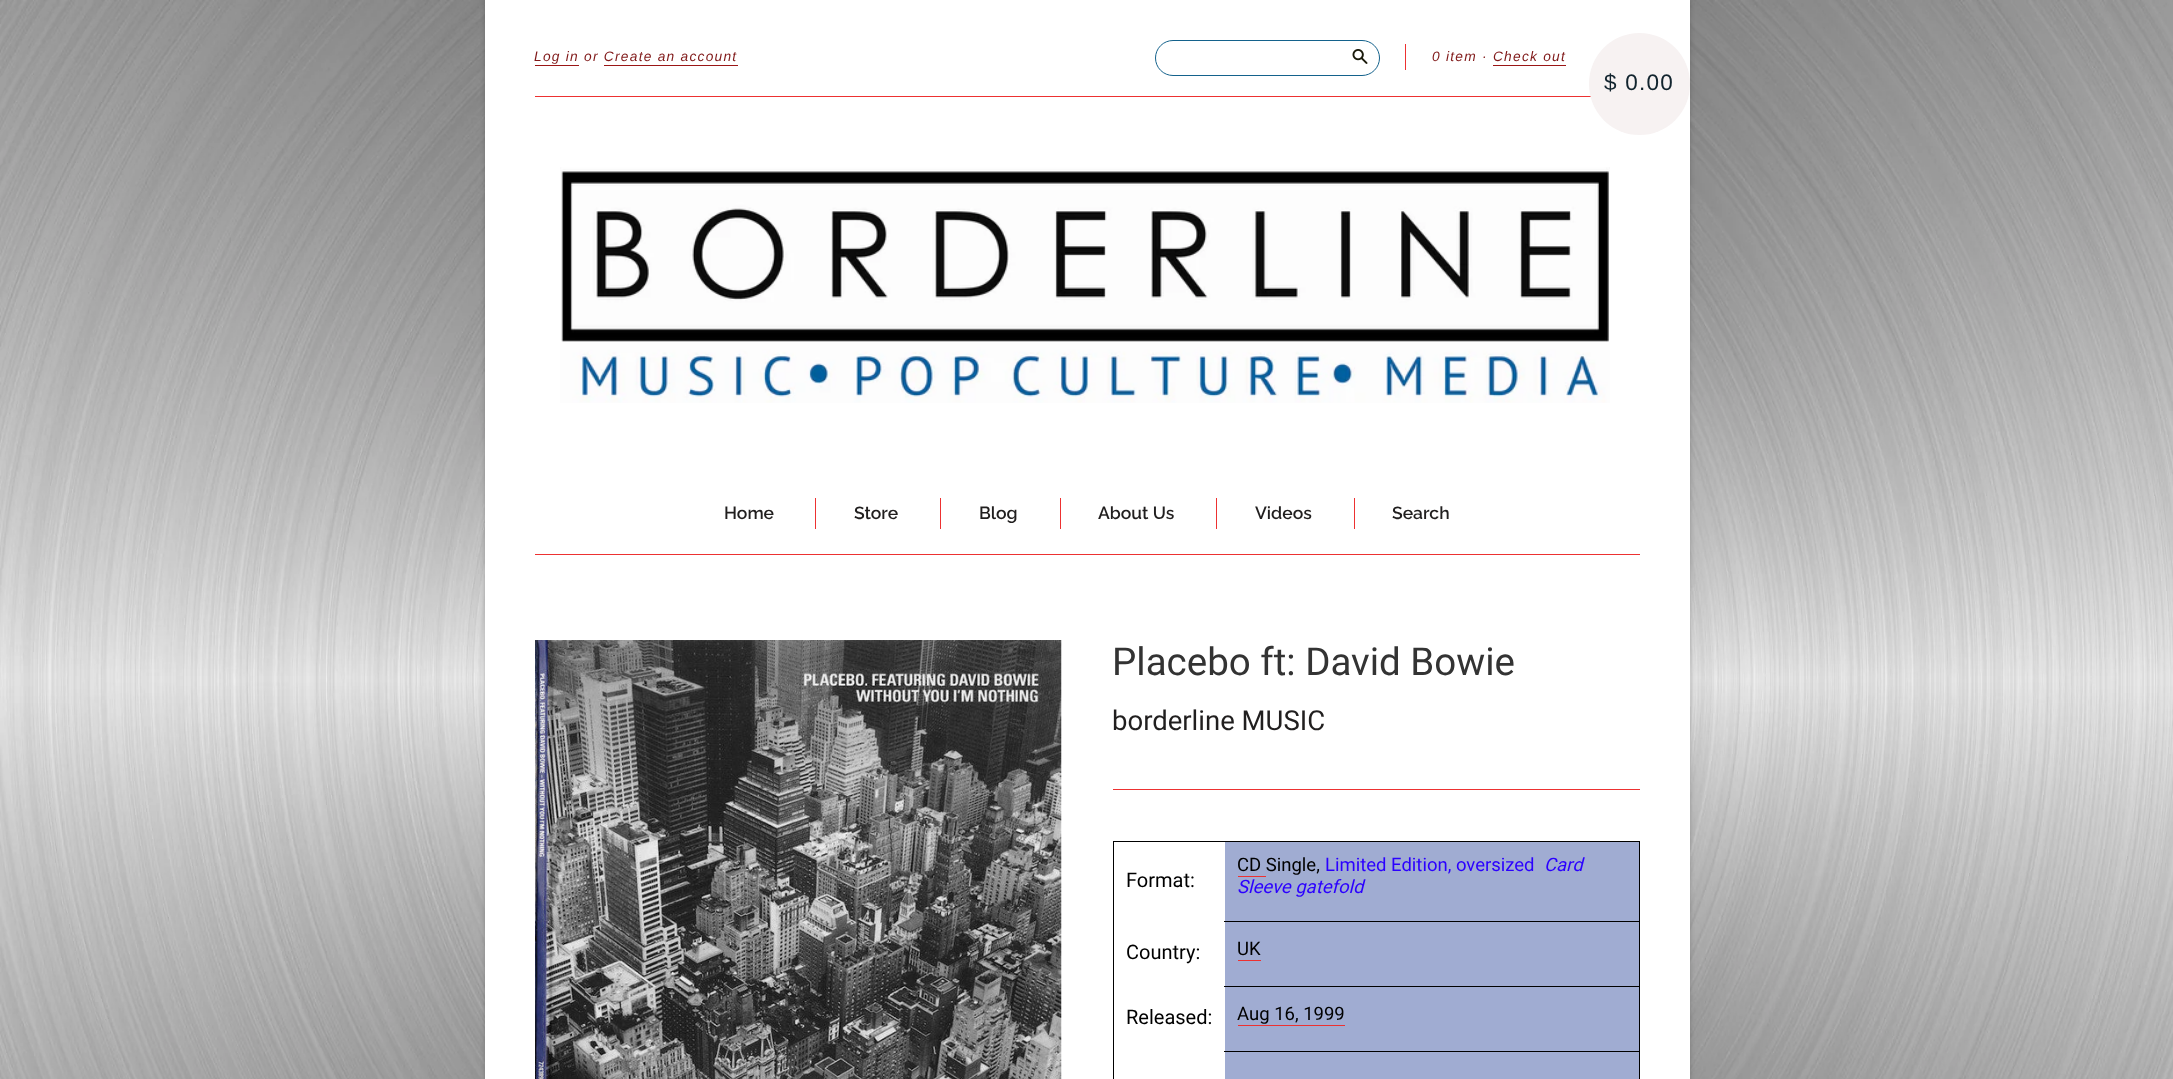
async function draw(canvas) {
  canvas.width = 2173
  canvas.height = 1079
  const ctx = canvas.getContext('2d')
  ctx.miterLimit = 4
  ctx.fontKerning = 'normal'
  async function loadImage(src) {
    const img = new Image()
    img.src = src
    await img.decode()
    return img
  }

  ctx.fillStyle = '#fff'
  ctx.fillRect(0, 0, 2173, 1079)
  ctx.drawImage(await loadImage('image0.png'), 0, 0, 2173, 1079)
  ctx.fillStyle = '#00000033'
  ctx.filter = 'blur(2.5px)'
  ctx.beginPath()
  ctx.rect(485, 0, 1205, 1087)
  ctx.fill()
  ctx.filter = 'none'
  ctx.fillStyle = '#fff'
  ctx.fillRect(485, 0, 1205, 1079)
  ctx.fillStyle = '#ed3131'
  ctx.fillRect(535, 554, 1105, 1)
  ctx.fillRect(535, 96, 1056, 1)
  ctx.letterSpacing = '1.25px'
  ctx.font = 'italic 13.75px Liberation Sans'
  ctx.fillStyle = '#801919'
  ctx.fillText('Log in or Create an account', 534, 61)
  ctx.fillStyle = '#9b1616'
  ctx.fillRect(535, 65, 44, 1)
  ctx.fillRect(604, 65, 134, 1)
  ctx.beginPath()
  ctx.roundRect(1155.5, 40.5, 224, 35, 17.5)
  ctx.strokeStyle = '#14628c'
  ctx.stroke()
  ctx.drawImage(await loadImage('image1.png'), 1352, 49, 16, 15)
  ctx.fillStyle = '#ed3131'
  ctx.fillRect(1405, 44, 1, 26)
  ctx.fillStyle = '#801919'
  ctx.fillText('0 item · Check out', 1432, 61)
  ctx.fillStyle = '#9b1616'
  ctx.fillRect(1493, 65, 73, 1)
  ctx.fillStyle = '#f7f2f2'
  ctx.beginPath()
  ctx.roundRect(1589, 33, 101, 102, 50.5)
  ctx.fill()
  ctx.font = '22.5px Liberation Sans'
  ctx.fillStyle = '#12242e'
  ctx.fillText('$ 0.00', 1604, 90)
  ctx.drawImage(await loadImage('image2.png'), 560, 167, 1050, 236)
  ctx.letterSpacing = '0px'
  ctx.font = '100 17.5px Raleway'
  ctx.fillStyle = '#211f1f'
  ctx.fillText('Home', 724, 519)
  ctx.fillStyle = '#ed3131'
  ctx.fillRect(815, 498, 1, 31)
  ctx.fillStyle = '#211f1f'
  ctx.fillText('Store', 854, 519)
  ctx.fillStyle = '#ed3131'
  ctx.fillRect(940, 498, 1, 31)
  ctx.fillStyle = '#211f1f'
  ctx.fillText('Blog', 979, 519)
  ctx.fillStyle = '#ed3131'
  ctx.fillRect(1060, 498, 1, 31)
  ctx.fillStyle = '#211f1f'
  ctx.fillText('About Us', 1098, 519)
  ctx.fillStyle = '#ed3131'
  ctx.fillRect(1216, 498, 1, 31)
  ctx.fillStyle = '#211f1f'
  ctx.fillText('Videos', 1255, 519)
  ctx.fillStyle = '#ed3131'
  ctx.fillRect(1354, 498, 1, 31)
  ctx.fillStyle = '#211f1f'
  ctx.fillText('Search', 1392, 519)
  ctx.drawImage(await loadImage('image3.png'), 535, 640, 527, 439)
  ctx.font = '38.5px Roboto'
  ctx.fillStyle = '#333'
  ctx.fillText('Placebo ft: David Bowie', 1112, 675)
  ctx.font = '27.5px Roboto'
  ctx.fillStyle = '#211f1f'
  ctx.fillText('borderline MUSIC', 1112, 730)
  ctx.fillStyle = '#ed3131'
  ctx.fillRect(1113, 789, 527, 1)
  ctx.fillStyle = '#000'
  ctx.fillRect(1113, 841, 527, 1)
  ctx.fillRect(1639, 841, 1, 238)
  ctx.fillRect(1113, 841, 1, 238)
  ctx.font = '20px Roboto'
  ctx.fillText('Format:', 1126, 887)
  ctx.fillStyle = '#a0acd2'
  ctx.fillRect(1225, 842, 414, 79)
  ctx.font = '18.5px Roboto'
  ctx.fillStyle = '#000'
  ctx.fillText('CD Single,', 1237, 871)
  ctx.fillStyle = '#ed3131'
  ctx.fillRect(1238, 876, 28, 1)
  ctx.fillStyle = '#2b00ff'
  ctx.fillText('Limited Edition, oversized', 1325, 871)
  ctx.font = 'italic 18.5px Roboto'
  ctx.fillText('Card', 1544, 871)
  ctx.fillText('Sleeve gatefold', 1237, 893)
  ctx.font = '20px Roboto'
  ctx.fillStyle = '#000'
  ctx.fillText('Country:', 1126, 959)
  ctx.fillStyle = '#a0acd2'
  ctx.fillRect(1225, 922, 414, 157)
  ctx.fillStyle = '#000'
  ctx.fillRect(1224, 921, 416, 1)
  ctx.font = '18.5px Roboto'
  ctx.fillText('UK', 1237, 955)
  ctx.fillStyle = '#ed3131'
  ctx.fillRect(1238, 960, 23, 1)
  ctx.font = '20px Roboto'
  ctx.fillStyle = '#000'
  ctx.fillText('Released:', 1126, 1024)
  ctx.fillRect(1224, 986, 416, 1)
  ctx.font = '18.5px Roboto'
  ctx.fillText('Aug 16, 1999', 1237, 1020)
  ctx.fillStyle = '#ed3131'
  ctx.fillRect(1238, 1025, 107, 1)
  ctx.fillStyle = '#000'
  ctx.fillRect(1224, 1051, 416, 1)
}

draw(document.querySelector('canvas'))
